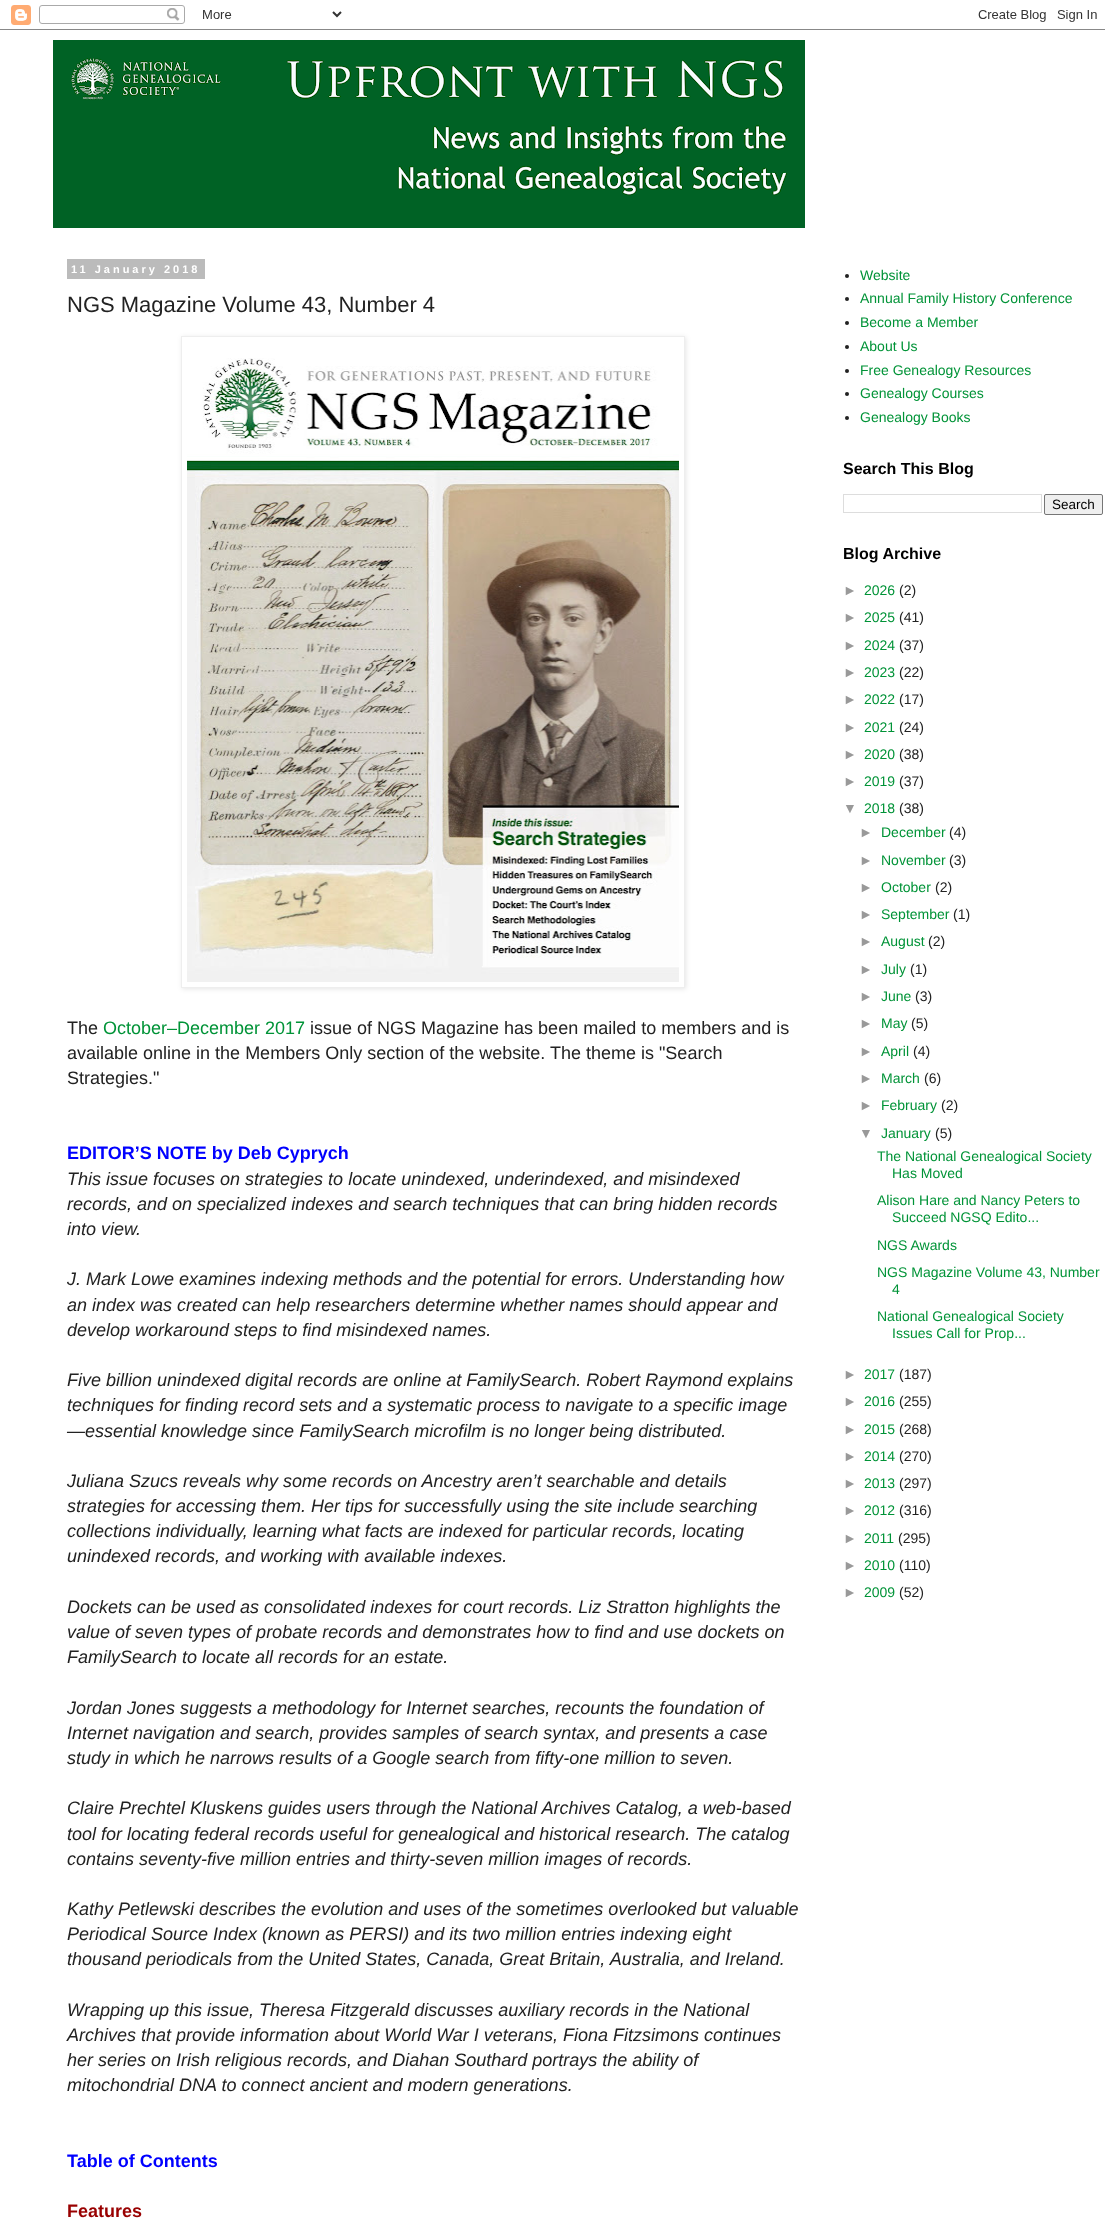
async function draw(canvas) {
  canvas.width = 1105
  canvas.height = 2225
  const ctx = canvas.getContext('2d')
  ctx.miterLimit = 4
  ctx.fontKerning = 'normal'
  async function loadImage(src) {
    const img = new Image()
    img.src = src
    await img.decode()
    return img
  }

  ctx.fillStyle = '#fff'
  ctx.fillRect(0, 0, 1105, 2225)
  ctx.drawImage(await loadImage('image0.png'), 0, 5, 1105, 25)
  ctx.drawImage(await loadImage('image1.png'), 53, 40, 752, 188)
  ctx.fillStyle = '#bbb'
  ctx.fillRect(67, 259, 138, 20)
  ctx.letterSpacing = '3px'
  ctx.font = 'bold 11px Liberation Sans'
  ctx.fillStyle = '#fff'
  ctx.fillText('11 January 2018', 71, 273)
  ctx.letterSpacing = '0px'
  ctx.font = '22px Liberation Sans'
  ctx.fillStyle = '#222'
  ctx.fillText('NGS Magazine Volume 43, Number 4', 67, 312)
  ctx.save()
  ctx.beginPath()
  ctx.moveTo(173, 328)
  ctx.lineTo(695, 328)
  ctx.lineTo(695, 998)
  ctx.lineTo(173, 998)
  ctx.closePath()
  ctx.moveTo(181, 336)
  ctx.lineTo(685, 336)
  ctx.lineTo(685, 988)
  ctx.lineTo(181, 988)
  ctx.closePath()
  ctx.clip('evenodd')
  ctx.fillStyle = '#0000001a'
  ctx.filter = 'blur(2.5px)'
  ctx.beginPath()
  ctx.rect(182, 337, 504, 652)
  ctx.fill()
  ctx.filter = 'none'
  ctx.restore()
  ctx.strokeStyle = '#eee'
  ctx.strokeRect(181.5, 336.5, 503, 651)
  ctx.drawImage(await loadImage('image2.png'), 187, 358, 492, 624)
  ctx.font = '18px Liberation Sans'
  ctx.fillText('The', 67, 1034)
  ctx.fillStyle = '#009337'
  ctx.fillText('October–December 2017', 103, 1034)
  ctx.fillStyle = '#222'
  ctx.fillText('issue of NGS Magazine has been mailed to members and is', 310, 1034)
  ctx.fillText('available online in the Members Only section of the website. The theme is "Search', 67, 1059)
  ctx.fillText('Strategies."', 67, 1084)
  ctx.font = 'bold 18px Liberation Sans'
  ctx.fillStyle = '#00f'
  ctx.fillText('EDITOR’S NOTE by Deb Cyprych', 67, 1159)
  ctx.font = 'italic 18px Liberation Sans'
  ctx.fillStyle = '#222'
  ctx.fillText('This issue focuses on strategies to locate unindexed, underindexed, and misindexed', 67, 1185)
  ctx.fillText('records, and on specialized indexes and search techniques that can bring hidden records', 67, 1210)
  ctx.fillText('into view.', 67, 1235)
  ctx.fillText('J. Mark Lowe examines indexing methods and the potential for errors. Understanding how', 67, 1285)
  ctx.fillText('an index was created can help researchers determine whether names should appear and', 67, 1311)
  ctx.fillText('develop workaround steps to find misindexed names.', 67, 1336)
  ctx.fillText('Five billion unindexed digital records are online at FamilySearch. Robert Raymond explains', 67, 1386)
  ctx.fillText('techniques for finding record sets and a systematic process to navigate to a specific image', 67, 1411)
  ctx.fillText('—essential knowledge since FamilySearch microfilm is no longer being distributed.', 67, 1437)
  ctx.fillText('Juliana Szucs reveals why some records on Ancestry aren’t searchable and details', 67, 1487)
  ctx.fillText('strategies for accessing them. Her tips for successfully using the site include searching', 67, 1512)
  ctx.fillText('collections individually, learning what facts are indexed for particular records, locating', 67, 1537)
  ctx.fillText('unindexed records, and working with available indexes.', 67, 1562)
  ctx.fillText('Dockets can be used as consolidated indexes for court records. Liz Stratton highlights the', 67, 1613)
  ctx.fillText('value of seven types of probate records and demonstrates how to find and use dockets on', 67, 1638)
  ctx.fillText('FamilySearch to locate all records for an estate.', 67, 1663)
  ctx.fillText('Jordan Jones suggests a methodology for Internet searches, recounts the foundation of', 67, 1714)
  ctx.fillText('Internet navigation and search, provides samples of search syntax, and presents a case', 67, 1739)
  ctx.fillText('study in which he narrows results of a Google search from fifty-one million to seven.', 67, 1764)
  ctx.fillText('Claire Prechtel Kluskens guides users through the National Archives Catalog, a web-based', 67, 1814)
  ctx.fillText('tool for locating federal records useful for genealogical and historical research. The catalog', 67, 1840)
  ctx.fillText('contains seventy-five million entries and thirty-seven million images of records.', 67, 1865)
  ctx.fillText('Kathy Petlewski describes the evolution and uses of the sometimes overlooked but valuable', 67, 1915)
  ctx.fillText('Periodical Source Index (known as PERSI) and its two million entries indexing eight', 67, 1940)
  ctx.fillText('thousand periodicals from the United States, Canada, Great Britain, Australia, and Ireland.', 67, 1965)
  ctx.fillText('Wrapping up this issue, Theresa Fitzgerald discusses auxiliary records in the National', 67, 2016)
  ctx.fillText('Archives that provide information about World War I veterans, Fiona Fitzsimons continues', 67, 2041)
  ctx.fillText('her series on Irish religious records, and Diahan Southard portrays the ability of', 67, 2066)
  ctx.fillText('mitochondrial DNA to connect ancient and modern generations.', 67, 2091)
  ctx.font = 'bold 18px Liberation Sans'
  ctx.fillStyle = '#00f'
  ctx.fillText('Table of Contents', 67, 2167)
  ctx.fillStyle = '#900'
  ctx.fillText('Features', 67, 2217)
  ctx.fillStyle = '#222'
  ctx.beginPath()
  ctx.arc(847, 276, 2, 0, 2 * Math.PI)
  ctx.fill()
  ctx.font = '14px Liberation Sans'
  ctx.fillStyle = '#009337'
  ctx.fillText('Website', 860, 280)
  ctx.fillStyle = '#222'
  ctx.beginPath()
  ctx.arc(847, 299, 2, 0, 2 * Math.PI)
  ctx.fill()
  ctx.fillStyle = '#009337'
  ctx.fillText('Annual Family History Conference', 860, 303)
  ctx.fillStyle = '#222'
  ctx.beginPath()
  ctx.arc(847, 323, 2, 0, 2 * Math.PI)
  ctx.fill()
  ctx.fillStyle = '#009337'
  ctx.fillText('Become a Member', 860, 327)
  ctx.fillStyle = '#222'
  ctx.beginPath()
  ctx.arc(847, 347, 2, 0, 2 * Math.PI)
  ctx.fill()
  ctx.fillStyle = '#009337'
  ctx.fillText('About Us', 860, 351)
  ctx.fillStyle = '#222'
  ctx.beginPath()
  ctx.arc(847, 371, 2, 0, 2 * Math.PI)
  ctx.fill()
  ctx.fillStyle = '#009337'
  ctx.fillText('Free Genealogy Resources', 860, 375)
  ctx.fillStyle = '#222'
  ctx.beginPath()
  ctx.arc(847, 394, 2, 0, 2 * Math.PI)
  ctx.fill()
  ctx.fillStyle = '#009337'
  ctx.fillText('Genealogy Courses', 860, 398)
  ctx.fillStyle = '#222'
  ctx.beginPath()
  ctx.arc(847, 418, 2, 0, 2 * Math.PI)
  ctx.fill()
  ctx.fillStyle = '#009337'
  ctx.fillText('Genealogy Books', 860, 422)
  ctx.font = 'bold 16px Liberation Sans'
  ctx.fillStyle = '#000'
  ctx.fillText('Search This Blog', 843, 474)
  ctx.strokeStyle = '#ddd'
  ctx.strokeRect(843.5, 494.5, 198, 18)
  ctx.fillStyle = '#efefef'
  ctx.beginPath()
  ctx.roundRect(1044.5, 494.5, 58, 20, 1.5)
  ctx.fill()
  ctx.strokeStyle = '#767676'
  ctx.stroke()
  ctx.font = '13.5px Liberation Sans'
  ctx.fillStyle = '#000'
  ctx.fillText('Search', 1052, 509)
  ctx.font = 'bold 16px Liberation Sans'
  ctx.fillText('Blog Archive', 843, 559)
  ctx.font = '14px Liberation Sans'
  ctx.fillStyle = '#999'
  ctx.fillText('►', 843, 595)
  ctx.fillStyle = '#009337'
  ctx.fillText('2026', 864, 595)
  ctx.fillStyle = '#222'
  ctx.fillText('(2)', 899, 595)
  ctx.fillStyle = '#999'
  ctx.fillText('►', 843, 622)
  ctx.fillStyle = '#009337'
  ctx.fillText('2025', 864, 622)
  ctx.fillStyle = '#222'
  ctx.fillText('(41)', 899, 622)
  ctx.fillStyle = '#999'
  ctx.fillText('►', 843, 650)
  ctx.fillStyle = '#009337'
  ctx.fillText('2024', 864, 650)
  ctx.fillStyle = '#222'
  ctx.fillText('(37)', 899, 650)
  ctx.fillStyle = '#999'
  ctx.fillText('►', 843, 677)
  ctx.fillStyle = '#009337'
  ctx.fillText('2023', 864, 677)
  ctx.fillStyle = '#222'
  ctx.fillText('(22)', 899, 677)
  ctx.fillStyle = '#999'
  ctx.fillText('►', 843, 704)
  ctx.fillStyle = '#009337'
  ctx.fillText('2022', 864, 704)
  ctx.fillStyle = '#222'
  ctx.fillText('(17)', 899, 704)
  ctx.fillStyle = '#999'
  ctx.fillText('►', 843, 732)
  ctx.fillStyle = '#009337'
  ctx.fillText('2021', 864, 732)
  ctx.fillStyle = '#222'
  ctx.fillText('(24)', 899, 732)
  ctx.fillStyle = '#999'
  ctx.fillText('►', 843, 759)
  ctx.fillStyle = '#009337'
  ctx.fillText('2020', 864, 759)
  ctx.fillStyle = '#222'
  ctx.fillText('(38)', 899, 759)
  ctx.fillStyle = '#999'
  ctx.fillText('►', 843, 786)
  ctx.fillStyle = '#009337'
  ctx.fillText('2019', 864, 786)
  ctx.fillStyle = '#222'
  ctx.fillText('(37)', 899, 786)
  ctx.fillStyle = '#999'
  ctx.fillText('▼', 843, 813)
  ctx.fillStyle = '#009337'
  ctx.fillText('2018', 864, 813)
  ctx.fillStyle = '#222'
  ctx.fillText('(38)', 899, 813)
  ctx.fillStyle = '#999'
  ctx.fillText('►', 859, 837)
  ctx.fillStyle = '#009337'
  ctx.fillText('December', 881, 837)
  ctx.fillStyle = '#222'
  ctx.fillText('(4)', 949, 837)
  ctx.fillStyle = '#999'
  ctx.fillText('►', 859, 865)
  ctx.fillStyle = '#009337'
  ctx.fillText('November', 881, 865)
  ctx.fillStyle = '#222'
  ctx.fillText('(3)', 949, 865)
  ctx.fillStyle = '#999'
  ctx.fillText('►', 859, 892)
  ctx.fillStyle = '#009337'
  ctx.fillText('October', 881, 892)
  ctx.fillStyle = '#222'
  ctx.fillText('(2)', 935, 892)
  ctx.fillStyle = '#999'
  ctx.fillText('►', 859, 919)
  ctx.fillStyle = '#009337'
  ctx.fillText('September', 881, 919)
  ctx.fillStyle = '#222'
  ctx.fillText('(1)', 953, 919)
  ctx.fillStyle = '#999'
  ctx.fillText('►', 859, 946)
  ctx.fillStyle = '#009337'
  ctx.fillText('August', 881, 946)
  ctx.fillStyle = '#222'
  ctx.fillText('(2)', 928, 946)
  ctx.fillStyle = '#999'
  ctx.fillText('►', 859, 974)
  ctx.fillStyle = '#009337'
  ctx.fillText('July', 881, 974)
  ctx.fillStyle = '#222'
  ctx.fillText('(1)', 910, 974)
  ctx.fillStyle = '#999'
  ctx.fillText('►', 859, 1001)
  ctx.fillStyle = '#009337'
  ctx.fillText('June', 881, 1001)
  ctx.fillStyle = '#222'
  ctx.fillText('(3)', 915, 1001)
  ctx.fillStyle = '#999'
  ctx.fillText('►', 859, 1028)
  ctx.fillStyle = '#009337'
  ctx.fillText('May', 881, 1028)
  ctx.fillStyle = '#222'
  ctx.fillText('(5)', 911, 1028)
  ctx.fillStyle = '#999'
  ctx.fillText('►', 859, 1056)
  ctx.fillStyle = '#009337'
  ctx.fillText('April', 881, 1056)
  ctx.fillStyle = '#222'
  ctx.fillText('(4)', 913, 1056)
  ctx.fillStyle = '#999'
  ctx.fillText('►', 859, 1083)
  ctx.fillStyle = '#009337'
  ctx.fillText('March', 881, 1083)
  ctx.fillStyle = '#222'
  ctx.fillText('(6)', 924, 1083)
  ctx.fillStyle = '#999'
  ctx.fillText('►', 859, 1110)
  ctx.fillStyle = '#009337'
  ctx.fillText('February', 881, 1110)
  ctx.fillStyle = '#222'
  ctx.fillText('(2)', 941, 1110)
  ctx.fillStyle = '#999'
  ctx.fillText('▼', 859, 1138)
  ctx.fillStyle = '#009337'
  ctx.fillText('January', 881, 1138)
  ctx.fillStyle = '#222'
  ctx.fillText('(5)', 935, 1138)
  ctx.fillStyle = '#009337'
  ctx.fillText('The National Genealogical Society', 877, 1161)
  ctx.fillText('Has Moved', 892, 1178)
  ctx.fillText('Alison Hare and Nancy Peters to', 877, 1205)
  ctx.fillText('Succeed NGSQ Edito...', 892, 1222)
  ctx.fillText('NGS Awards', 877, 1250)
  ctx.fillText('NGS Magazine Volume 43, Number', 877, 1277)
  ctx.fillText('4', 892, 1294)
  ctx.fillText('National Genealogical Society', 877, 1321)
  ctx.fillText('Issues Call for Prop...', 892, 1338)
  ctx.fillStyle = '#999'
  ctx.fillText('►', 843, 1379)
  ctx.fillStyle = '#009337'
  ctx.fillText('2017', 864, 1379)
  ctx.fillStyle = '#222'
  ctx.fillText('(187)', 899, 1379)
  ctx.fillStyle = '#999'
  ctx.fillText('►', 843, 1406)
  ctx.fillStyle = '#009337'
  ctx.fillText('2016', 864, 1406)
  ctx.fillStyle = '#222'
  ctx.fillText('(255)', 899, 1406)
  ctx.fillStyle = '#999'
  ctx.fillText('►', 843, 1434)
  ctx.fillStyle = '#009337'
  ctx.fillText('2015', 864, 1434)
  ctx.fillStyle = '#222'
  ctx.fillText('(268)', 899, 1434)
  ctx.fillStyle = '#999'
  ctx.fillText('►', 843, 1461)
  ctx.fillStyle = '#009337'
  ctx.fillText('2014', 864, 1461)
  ctx.fillStyle = '#222'
  ctx.fillText('(270)', 899, 1461)
  ctx.fillStyle = '#999'
  ctx.fillText('►', 843, 1488)
  ctx.fillStyle = '#009337'
  ctx.fillText('2013', 864, 1488)
  ctx.fillStyle = '#222'
  ctx.fillText('(297)', 899, 1488)
  ctx.fillStyle = '#999'
  ctx.fillText('►', 843, 1515)
  ctx.fillStyle = '#009337'
  ctx.fillText('2012', 864, 1515)
  ctx.fillStyle = '#222'
  ctx.fillText('(316)', 899, 1515)
  ctx.fillStyle = '#999'
  ctx.fillText('►', 843, 1543)
  ctx.fillStyle = '#009337'
  ctx.fillText('2011', 864, 1543)
  ctx.fillStyle = '#222'
  ctx.fillText('(295)', 898, 1543)
  ctx.fillStyle = '#999'
  ctx.fillText('►', 843, 1570)
  ctx.fillStyle = '#009337'
  ctx.fillText('2010', 864, 1570)
  ctx.fillStyle = '#222'
  ctx.fillText('(110)', 899, 1570)
  ctx.fillStyle = '#999'
  ctx.fillText('►', 843, 1597)
  ctx.fillStyle = '#009337'
  ctx.fillText('2009', 864, 1597)
  ctx.fillStyle = '#222'
  ctx.fillText('(52)', 899, 1597)
}

draw(document.querySelector('canvas'))
